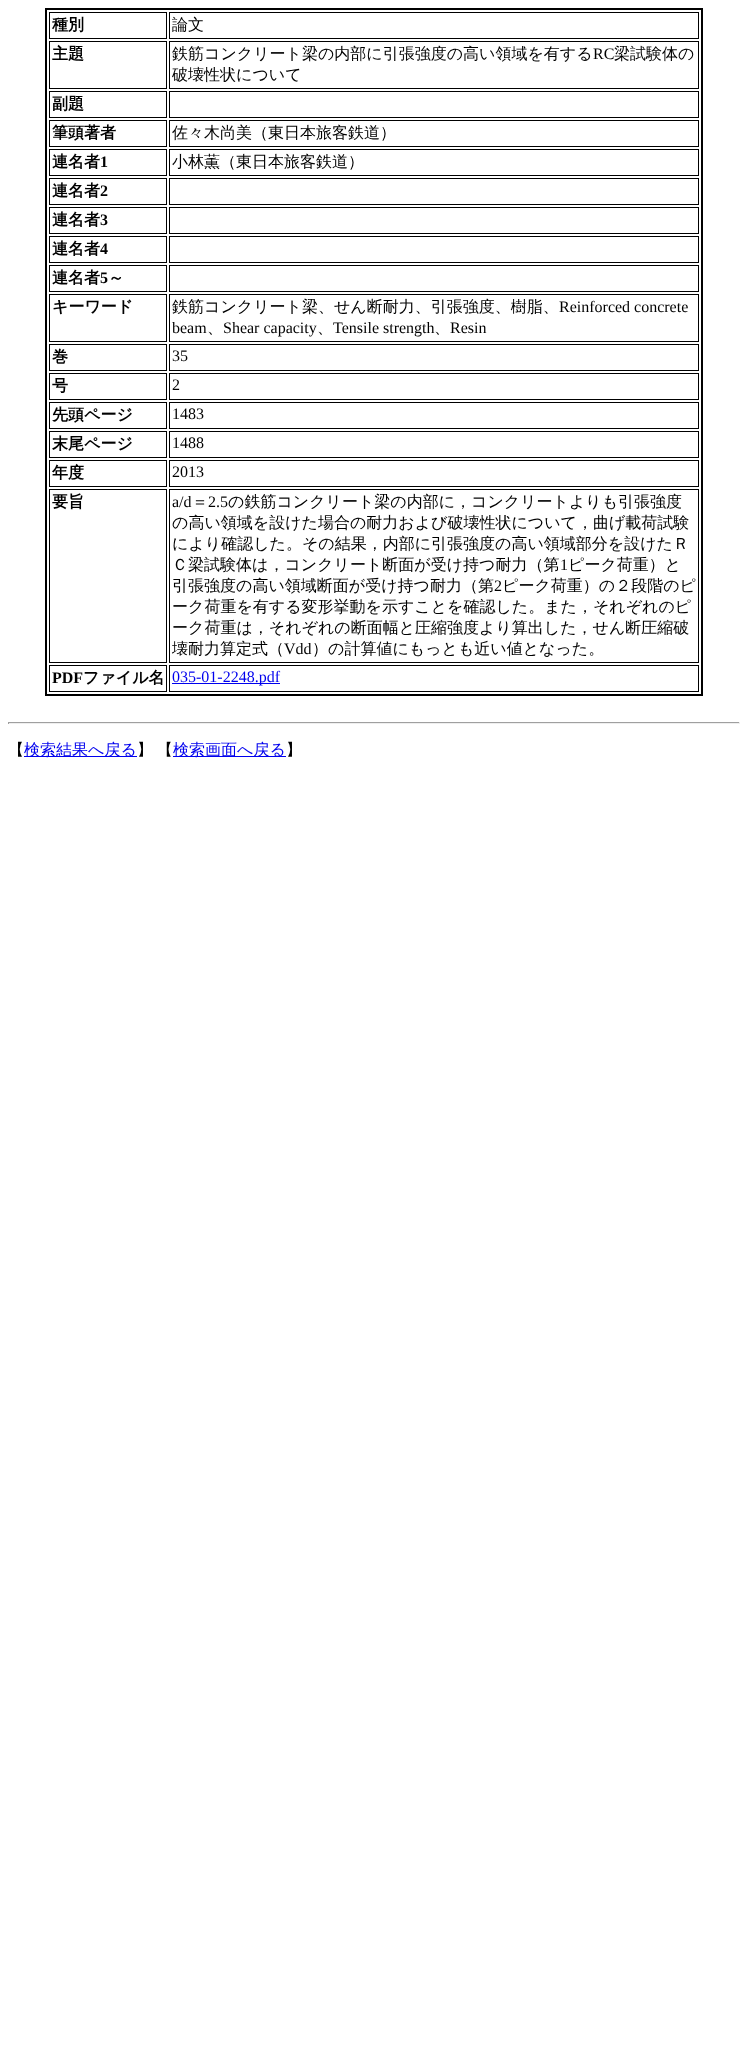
async function draw(canvas) {
  canvas.width = 748
  canvas.height = 2063
  const ctx = canvas.getContext('2d')
  ctx.miterLimit = 4
  ctx.fontKerning = 'normal'

  ctx.fillStyle = '#fff'
  ctx.fillRect(0, 0, 748, 2063)
  ctx.strokeStyle = '#000'
  ctx.lineWidth = 2
  ctx.strokeRect(46, 9, 656, 686)
  ctx.lineWidth = 1
  ctx.strokeRect(49.5, 12.5, 117, 26)
  ctx.font = 'bold 16px WenQuanYi Zen Hei'
  ctx.fillStyle = '#000'
  ctx.fillText('種別', 52, 30)
  ctx.strokeRect(169.5, 12.5, 529, 26)
  ctx.font = '500 16px WenQuanYi Zen Hei'
  ctx.fillText('論文', 172, 30)
  ctx.strokeRect(49.5, 41.5, 117, 47)
  ctx.font = 'bold 16px WenQuanYi Zen Hei'
  ctx.fillText('主題', 52, 59)
  ctx.strokeRect(169.5, 41.5, 529, 47)
  ctx.font = '500 16px WenQuanYi Zen Hei'
  ctx.fillText('鉄筋コンクリート梁の内部に引張強度の高い領域を有する', 172, 59)
  ctx.font = '16px Liberation Serif'
  ctx.fillText('RC', 593, 59)
  ctx.font = '500 16px WenQuanYi Zen Hei'
  ctx.fillText('梁試験体の', 614, 59)
  ctx.fillText('破壊性状について', 172, 80)
  ctx.strokeRect(49.5, 91.5, 117, 26)
  ctx.font = 'bold 16px WenQuanYi Zen Hei'
  ctx.fillText('副題', 52, 109)
  ctx.strokeRect(169.5, 91.5, 529, 26)
  ctx.strokeRect(49.5, 120.5, 117, 26)
  ctx.fillText('筆頭著者', 52, 138)
  ctx.strokeRect(169.5, 120.5, 529, 26)
  ctx.font = '500 16px WenQuanYi Zen Hei'
  ctx.fillText('佐々木尚美（東日本旅客鉄道）', 172, 138)
  ctx.strokeRect(49.5, 149.5, 117, 26)
  ctx.font = 'bold 16px WenQuanYi Zen Hei'
  ctx.fillText('連名者', 52, 167)
  ctx.font = 'bold 16px Liberation Serif'
  ctx.fillText('1', 100, 167)
  ctx.strokeRect(169.5, 149.5, 529, 26)
  ctx.font = '500 16px WenQuanYi Zen Hei'
  ctx.fillText('小林薫（東日本旅客鉄道）', 172, 167)
  ctx.strokeRect(49.5, 178.5, 117, 26)
  ctx.font = 'bold 16px WenQuanYi Zen Hei'
  ctx.fillText('連名者', 52, 196)
  ctx.font = 'bold 16px Liberation Serif'
  ctx.fillText('2', 100, 196)
  ctx.strokeRect(169.5, 178.5, 529, 26)
  ctx.strokeRect(49.5, 207.5, 117, 26)
  ctx.font = 'bold 16px WenQuanYi Zen Hei'
  ctx.fillText('連名者', 52, 225)
  ctx.font = 'bold 16px Liberation Serif'
  ctx.fillText('3', 100, 225)
  ctx.strokeRect(169.5, 207.5, 529, 26)
  ctx.strokeRect(49.5, 236.5, 117, 26)
  ctx.font = 'bold 16px WenQuanYi Zen Hei'
  ctx.fillText('連名者', 52, 254)
  ctx.font = 'bold 16px Liberation Serif'
  ctx.fillText('4', 100, 254)
  ctx.strokeRect(169.5, 236.5, 529, 26)
  ctx.strokeRect(49.5, 265.5, 117, 26)
  ctx.font = 'bold 16px WenQuanYi Zen Hei'
  ctx.fillText('連名者', 52, 283)
  ctx.font = 'bold 16px Liberation Serif'
  ctx.fillText('5', 100, 283)
  ctx.font = 'bold 16px WenQuanYi Zen Hei'
  ctx.fillText('～', 108, 283)
  ctx.strokeRect(169.5, 265.5, 529, 26)
  ctx.strokeRect(49.5, 294.5, 117, 47)
  ctx.fillText('キーワード', 52, 312)
  ctx.strokeRect(169.5, 294.5, 529, 47)
  ctx.font = '500 16px WenQuanYi Zen Hei'
  ctx.fillText('鉄筋コンクリート梁、せん断耐力、引張強度、樹脂、', 172, 312)
  ctx.font = '16px Liberation Serif'
  ctx.fillText('Reinforced concrete', 559, 312)
  ctx.fillText('beam', 172, 333)
  ctx.font = '500 16px WenQuanYi Zen Hei'
  ctx.fillText('、', 207, 333)
  ctx.font = '16px Liberation Serif'
  ctx.fillText('Shear capacity', 223, 333)
  ctx.font = '500 16px WenQuanYi Zen Hei'
  ctx.fillText('、', 317, 333)
  ctx.font = '16px Liberation Serif'
  ctx.fillText('Tensile strength', 333, 333)
  ctx.font = '500 16px WenQuanYi Zen Hei'
  ctx.fillText('、', 434, 333)
  ctx.font = '16px Liberation Serif'
  ctx.fillText('Resin', 450, 333)
  ctx.strokeRect(49.5, 344.5, 117, 26)
  ctx.font = 'bold 16px WenQuanYi Zen Hei'
  ctx.fillText('巻', 52, 362)
  ctx.strokeRect(169.5, 344.5, 529, 26)
  ctx.font = '16px Liberation Serif'
  ctx.fillText('35', 172, 361)
  ctx.strokeRect(49.5, 373.5, 117, 26)
  ctx.font = 'bold 16px WenQuanYi Zen Hei'
  ctx.fillText('号', 52, 391)
  ctx.strokeRect(169.5, 373.5, 529, 26)
  ctx.font = '16px Liberation Serif'
  ctx.fillText('2', 172, 390)
  ctx.strokeRect(49.5, 402.5, 117, 26)
  ctx.font = 'bold 16px WenQuanYi Zen Hei'
  ctx.fillText('先頭ページ', 52, 420)
  ctx.strokeRect(169.5, 402.5, 529, 26)
  ctx.font = '16px Liberation Serif'
  ctx.fillText('1483', 172, 419)
  ctx.strokeRect(49.5, 431.5, 117, 26)
  ctx.font = 'bold 16px WenQuanYi Zen Hei'
  ctx.fillText('末尾ページ', 52, 449)
  ctx.strokeRect(169.5, 431.5, 529, 26)
  ctx.font = '16px Liberation Serif'
  ctx.fillText('1488', 172, 448)
  ctx.strokeRect(49.5, 460.5, 117, 26)
  ctx.font = 'bold 16px WenQuanYi Zen Hei'
  ctx.fillText('年度', 52, 478)
  ctx.strokeRect(169.5, 460.5, 529, 26)
  ctx.font = '16px Liberation Serif'
  ctx.fillText('2013', 172, 477)
  ctx.strokeRect(49.5, 489.5, 117, 173)
  ctx.font = 'bold 16px WenQuanYi Zen Hei'
  ctx.fillText('要旨', 52, 507)
  ctx.strokeRect(169.5, 489.5, 529, 173)
  ctx.font = '16px Liberation Serif'
  ctx.fillText('a/d', 172, 507)
  ctx.font = '500 16px WenQuanYi Zen Hei'
  ctx.fillText('＝', 192, 507)
  ctx.font = '16px Liberation Serif'
  ctx.fillText('2.5', 208, 507)
  ctx.font = '500 16px WenQuanYi Zen Hei'
  ctx.fillText('の鉄筋コンクリート梁の内部に，コンクリートよりも引張強度', 228, 507)
  ctx.fillText('の高い領域を設けた場合の耐力および破壊性状について，曲げ載荷試験', 172, 528)
  ctx.fillText('により確認した。その結果，内部に引張強度の高い領域部分を設けたＲ', 172, 549)
  ctx.fillText('Ｃ梁試験体は，コンクリート断面が受け持つ耐力（第', 172, 570)
  ctx.font = '16px Liberation Serif'
  ctx.fillText('1', 560, 570)
  ctx.font = '500 16px WenQuanYi Zen Hei'
  ctx.fillText('ピーク荷重）と', 568, 570)
  ctx.fillText('引張強度の高い領域断面が受け持つ耐力（第', 172, 591)
  ctx.font = '16px Liberation Serif'
  ctx.fillText('2', 494, 591)
  ctx.font = '500 16px WenQuanYi Zen Hei'
  ctx.fillText('ピーク荷重）の２段階のピ', 502, 591)
  ctx.fillText('ーク荷重を有する変形挙動を示すことを確認した。また，それぞれのピ', 172, 612)
  ctx.fillText('ーク荷重は，それぞれの断面幅と圧縮強度より算出した，せん断圧縮破', 172, 633)
  ctx.fillText('壊耐力算定式（', 172, 654)
  ctx.font = '16px Liberation Serif'
  ctx.fillText('Vdd', 284, 654)
  ctx.font = '500 16px WenQuanYi Zen Hei'
  ctx.fillText('）の計算値にもっとも近い値となった。', 312, 654)
  ctx.strokeRect(49.5, 665.5, 117, 26)
  ctx.font = 'bold 16px Liberation Serif'
  ctx.fillText('PDF', 52, 683)
  ctx.font = 'bold 16px WenQuanYi Zen Hei'
  ctx.fillText('ファイル名', 83, 683)
  ctx.strokeRect(169.5, 665.5, 529, 26)
  ctx.fillStyle = '#00e'
  ctx.fillRect(172, 683, 108, 1)
  ctx.font = '16px Liberation Serif'
  ctx.fillText('035-01-2248.pdf', 172, 682)
  ctx.fillStyle = '#9f9f9f'
  ctx.fillRect(8, 722, 732, 1)
  ctx.fillStyle = '#eee'
  ctx.fillRect(739, 722, 1, 2)
  ctx.fillRect(8, 723, 732, 1)
  ctx.fillStyle = '#9f9f9f'
  ctx.fillRect(8, 722, 1, 2)
  ctx.font = '500 16px WenQuanYi Zen Hei'
  ctx.fillStyle = '#000'
  ctx.fillText('【', 8, 755)
  ctx.fillStyle = '#00e'
  ctx.fillRect(24, 756, 113, 1)
  ctx.fillText('検索結果へ戻る', 24, 755)
  ctx.wordSpacing = '-1px'
  ctx.fillStyle = '#000'
  ctx.fillText('】 【', 137, 755)
  ctx.fillStyle = '#00e'
  ctx.fillRect(173, 756, 113, 1)
  ctx.wordSpacing = '0px'
  ctx.fillText('検索画面へ戻る', 173, 755)
  ctx.fillStyle = '#000'
  ctx.fillText('】', 286, 755)
}

draw(document.querySelector('canvas'))
